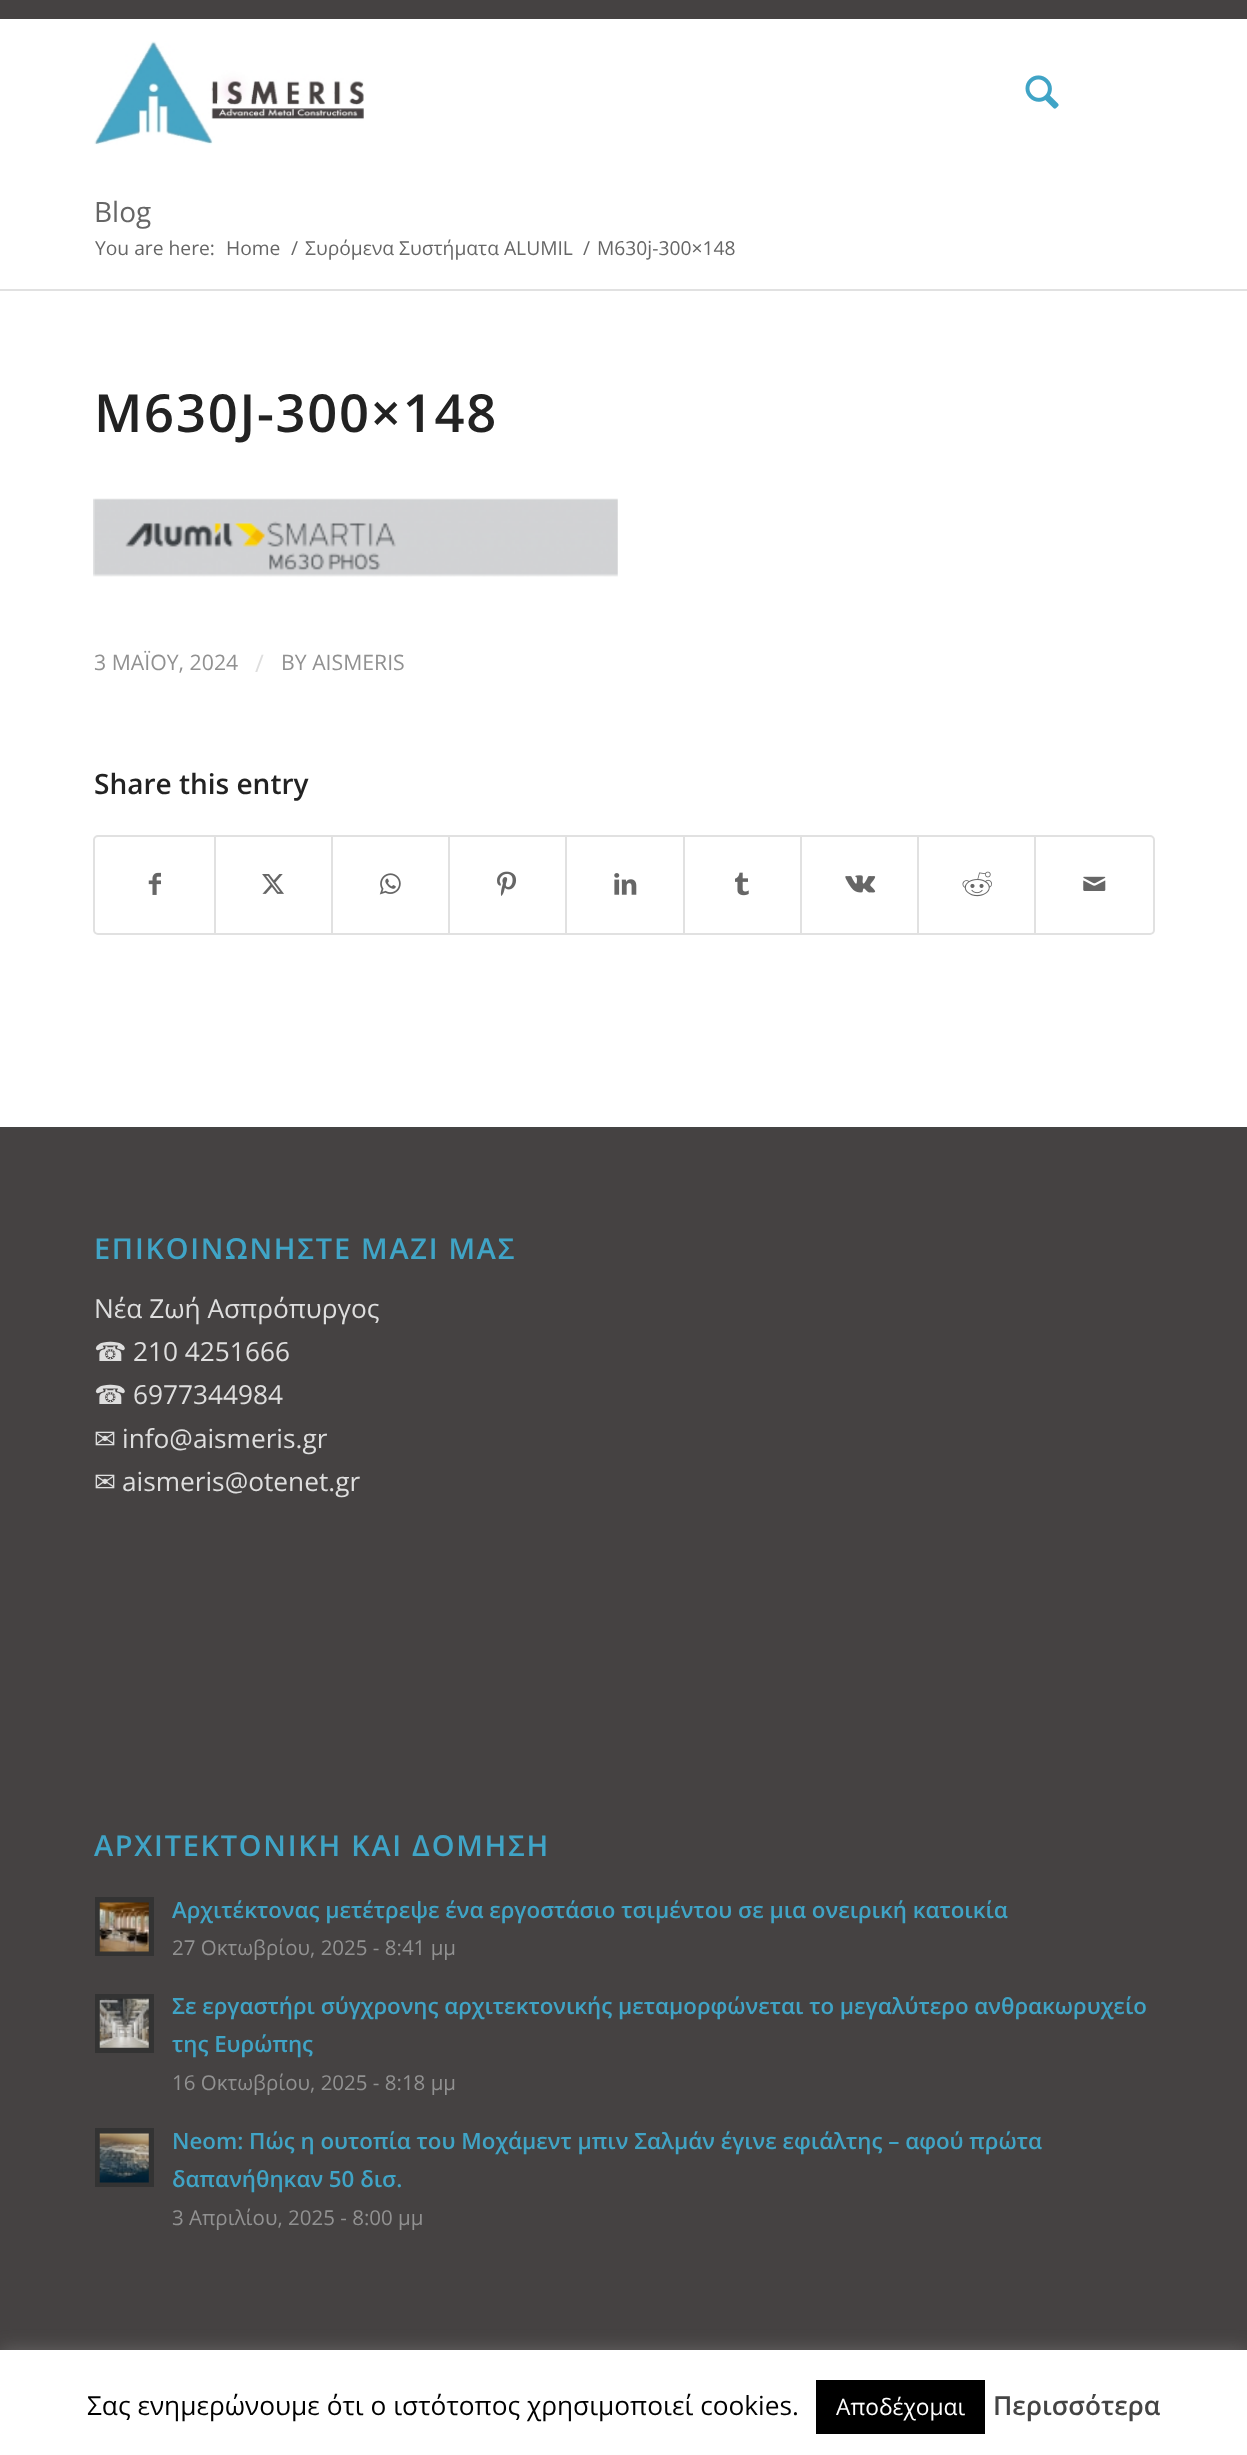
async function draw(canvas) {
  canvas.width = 1247
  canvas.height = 2455
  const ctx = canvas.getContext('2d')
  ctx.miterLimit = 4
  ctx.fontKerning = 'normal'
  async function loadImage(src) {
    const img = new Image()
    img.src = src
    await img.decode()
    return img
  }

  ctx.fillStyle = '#fff'
  ctx.fillRect(0, 0, 1247, 2455)
  ctx.fillStyle = '#454242'
  ctx.fillRect(0, 0, 1247, 19)
  ctx.drawImage(await loadImage('image0.png'), 94, 41, 270, 104)
  ctx.drawImage(await loadImage('image1.png'), 1025, 75, 34, 34)
  ctx.font = '28px Open Sans'
  ctx.fillStyle = '#666'
  ctx.fillText('Blog', 94, 222)
  ctx.font = '19.25px Open Sans'
  ctx.fillText('You are here:', 95, 255)
  ctx.fillText('Home', 226, 255)
  ctx.fillText('/', 291, 255)
  ctx.fillText('Συρόμενα Συστήματα ALUMIL', 305, 255)
  ctx.fillText('/', 583, 255)
  ctx.fillText('M630j-300×148', 597, 255)
  ctx.fillStyle = '#e1e1e1'
  ctx.fillRect(0, 289, 1247, 2)
  ctx.letterSpacing = '1.75px'
  ctx.font = '600 52.5px Open Sans'
  ctx.fillStyle = '#222'
  ctx.fillText('M630J-300×148', 94, 432)
  ctx.drawImage(await loadImage('image2.png'), 93, 498, 525, 79)
  ctx.letterSpacing = '0px'
  ctx.font = '21.25px Open Sans'
  ctx.fillStyle = '#919191'
  ctx.fillText('3 ΜΑΪΟΥ, 2024', 94, 670)
  ctx.font = '24px Open Sans'
  ctx.fillStyle = '#dedede'
  ctx.fillText('/', 255, 672)
  ctx.font = '21.25px Open Sans'
  ctx.fillStyle = '#919191'
  ctx.fillText('BY AISMERIS', 281, 670)
  ctx.font = '600 28px Open Sans'
  ctx.fillStyle = '#222'
  ctx.fillText('Share this entry', 94, 794)
  ctx.beginPath()
  ctx.roundRect(94, 836, 1060, 98, 4)
  ctx.strokeStyle = '#e1e1e1'
  ctx.lineWidth = 2
  ctx.stroke()
  ctx.drawImage(await loadImage('image3.png'), 148, 872, 13, 23)
  ctx.fillStyle = '#e1e1e1'
  ctx.fillRect(214, 837, 2, 96)
  ctx.drawImage(await loadImage('image4.png'), 262, 874, 22, 20)
  ctx.fillRect(331, 837, 2, 96)
  ctx.drawImage(await loadImage('image5.png'), 379, 873, 22, 22)
  ctx.fillRect(448, 837, 2, 96)
  ctx.drawImage(await loadImage('image6.png'), 497, 871, 20, 25)
  ctx.fillRect(565, 837, 2, 96)
  ctx.drawImage(await loadImage('image7.png'), 614, 873, 23, 22)
  ctx.fillRect(683, 837, 2, 96)
  ctx.drawImage(await loadImage('image8.png'), 735, 872, 14, 24)
  ctx.fillRect(800, 837, 2, 96)
  ctx.drawImage(await loadImage('image9.png'), 845, 875, 31, 18)
  ctx.fillRect(917, 837, 2, 96)
  ctx.drawImage(await loadImage('image10.png'), 962, 871, 30, 26)
  ctx.fillRect(1034, 837, 2, 96)
  ctx.drawImage(await loadImage('image11.png'), 1083, 876, 23, 15)
  ctx.fillStyle = '#454242'
  ctx.fillRect(0, 1129, 1247, 1221)
  ctx.fillStyle = '#444'
  ctx.fillRect(0, 1127, 1247, 2)
  ctx.letterSpacing = '1.75px'
  ctx.font = '600 28.9px Open Sans'
  ctx.fillStyle = '#40a4c6'
  ctx.fillText('ΕΠΙΚΟΙΝΩΝΗΣΤΕ ΜΑΖΙ ΜΑΣ', 94, 1259)
  ctx.letterSpacing = '0px'
  ctx.font = '26.25px Open Sans'
  ctx.fillStyle = '#dedede'
  ctx.fillText('Νέα Ζωή Ασπρόπυργος', 94, 1318)
  ctx.font = '26.25px DejaVu Sans'
  ctx.fillText('☎', 94, 1361)
  ctx.font = '26.25px Open Sans'
  ctx.fillText('210 4251666', 133, 1361)
  ctx.font = '26.25px DejaVu Sans'
  ctx.fillText('☎', 94, 1404)
  ctx.font = '26.25px Open Sans'
  ctx.fillText('6977344984', 133, 1404)
  ctx.font = '26.25px DejaVu Sans'
  ctx.fillText('✉', 94, 1448)
  ctx.font = '26.25px Open Sans'
  ctx.fillText('info@aismeris.gr', 122, 1448)
  ctx.font = '26.25px DejaVu Sans'
  ctx.fillText('✉', 94, 1491)
  ctx.font = '26.25px Open Sans'
  ctx.fillText('aismeris@otenet.gr', 122, 1491)
  ctx.letterSpacing = '1.75px'
  ctx.font = '600 28.9px Open Sans'
  ctx.fillStyle = '#40a4c6'
  ctx.fillText('ΑΡΧΙΤΕΚΤΟΝΙΚΗ ΚΑΙ ΔΟΜΗΣΗ', 94, 1856)
  ctx.fillStyle = '#333'
  ctx.fillRect(95, 1897, 59, 59)
  ctx.drawImage(await loadImage('image12.png'), 99, 1902, 50, 50)
  ctx.letterSpacing = '0px'
  ctx.font = '600 22.3px Open Sans'
  ctx.fillStyle = '#40a4c6'
  ctx.fillText('Αρχιτέκτονας μετέτρεψε ένα εργοστάσιο τσιμέντου σε μια ονειρική κατοικία', 172, 1918)
  ctx.font = '20.5px Open Sans'
  ctx.fillStyle = '#919191'
  ctx.fillText('27 Οκτωβρίου, 2025 - 8:41 μμ', 172, 1955)
  ctx.fillStyle = '#333'
  ctx.fillRect(95, 1994, 59, 59)
  ctx.drawImage(await loadImage('image13.png'), 99, 1998, 50, 50)
  ctx.font = '600 22.3px Open Sans'
  ctx.fillStyle = '#40a4c6'
  ctx.fillText('Σε εργαστήρι σύγχρονης αρχιτεκτονικής μεταμορφώνεται το μεγαλύτερο ανθρακωρυχείο', 172, 2014)
  ctx.fillText('της Ευρώπης', 172, 2052)
  ctx.font = '20.5px Open Sans'
  ctx.fillStyle = '#919191'
  ctx.fillText('16 Οκτωβρίου, 2025 - 8:18 μμ', 172, 2090)
  ctx.fillStyle = '#333'
  ctx.fillRect(95, 2128, 59, 59)
  ctx.drawImage(await loadImage('image14.png'), 99, 2133, 50, 50)
  ctx.font = '600 22.3px Open Sans'
  ctx.fillStyle = '#40a4c6'
  ctx.fillText('Neom: Πώς η ουτοπία του Μοχάμεντ μπιν Σαλμάν έγινε εφιάλτης – αφού πρώτα', 172, 2149)
  ctx.fillText('δαπανήθηκαν 50 δισ.', 172, 2187)
  ctx.font = '20.5px Open Sans'
  ctx.fillStyle = '#919191'
  ctx.fillText('3 Απριλίου, 2025 - 8:00 μμ', 172, 2225)
  ctx.fillStyle = '#acabab4d'
  ctx.filter = 'blur(9px)'
  ctx.beginPath()
  ctx.rect(0, 2349, 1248, 105)
  ctx.fill()
  ctx.filter = 'none'
  ctx.fillStyle = '#fff'
  ctx.fillRect(0, 2350, 1247, 105)
  ctx.font = '26.25px Open Sans'
  ctx.fillStyle = '#000'
  ctx.fillText('Σας ενημερώνουμε ότι ο ιστότοπος χρησιμοποιεί cookies.', 87, 2415)
  ctx.fillRect(816, 2380, 169, 54)
  ctx.font = '22.75px Open Sans'
  ctx.fillStyle = '#fff'
  ctx.fillText('Αποδέχομαι', 836, 2415)
  ctx.font = '600 26.25px Open Sans'
  ctx.fillStyle = '#444'
  ctx.fillText('Περισσότερα', 993, 2415)
}

draw(document.querySelector('canvas'))
